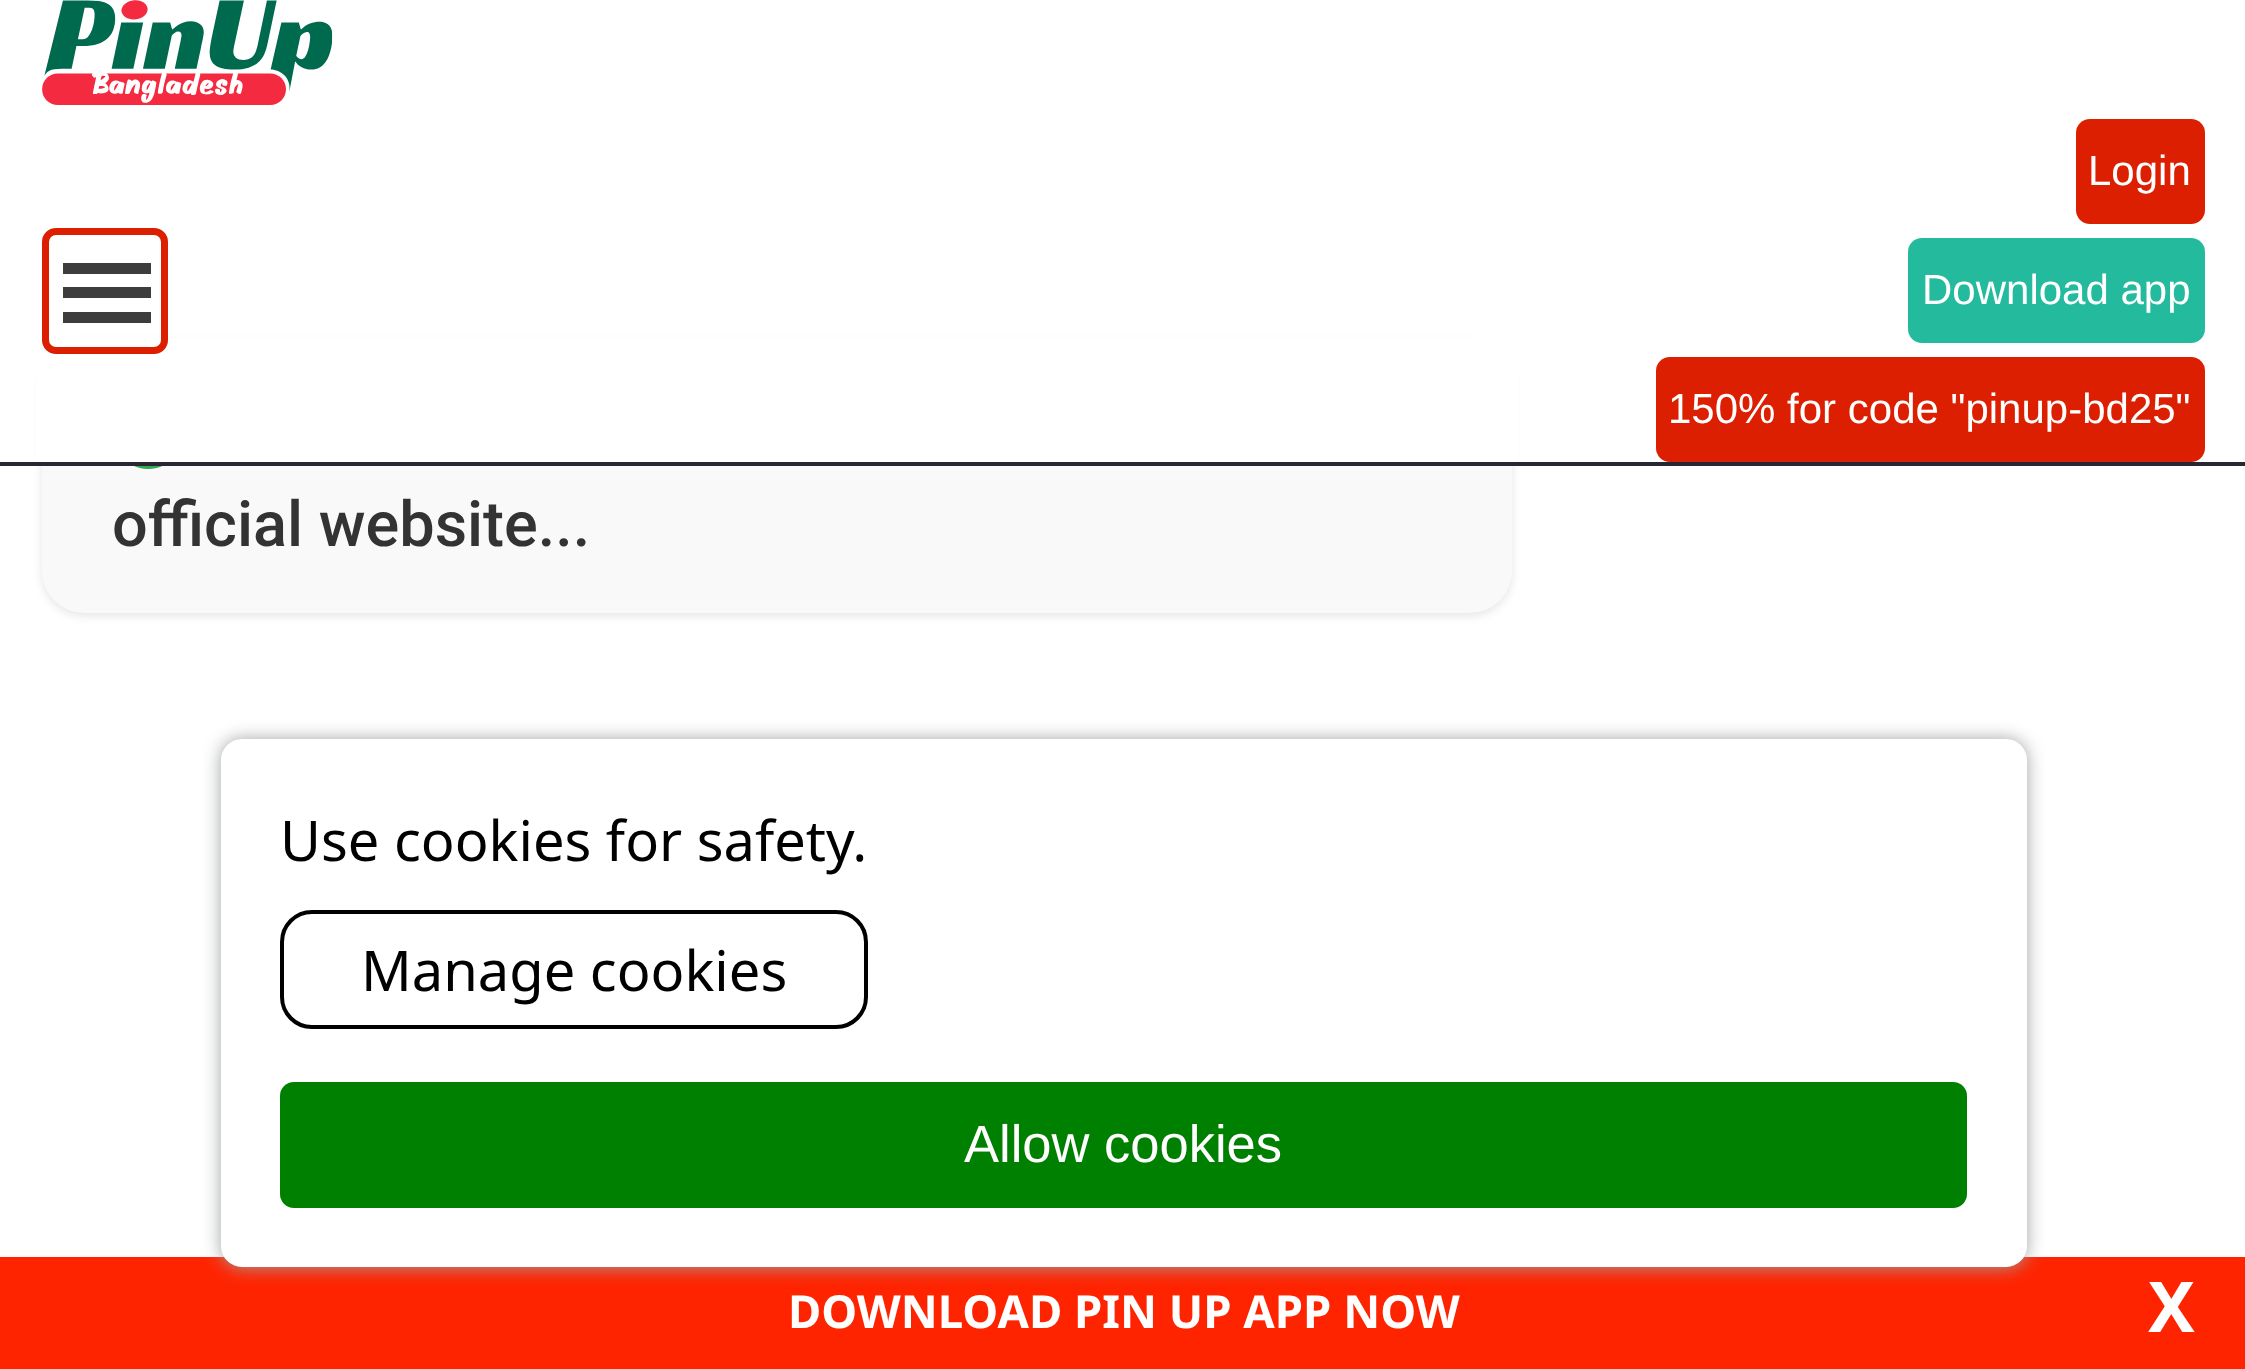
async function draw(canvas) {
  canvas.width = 2245
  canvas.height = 1369
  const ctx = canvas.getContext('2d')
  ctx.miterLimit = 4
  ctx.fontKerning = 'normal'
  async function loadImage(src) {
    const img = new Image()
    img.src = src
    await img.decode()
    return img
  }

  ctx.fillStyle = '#fff'
  ctx.fillRect(0, 0, 2245, 1369)
  ctx.fillStyle = '#0000001a'
  ctx.filter = 'blur(5px)'
  ctx.beginPath()
  ctx.roundRect(42, 343, 1470, 273, 42)
  ctx.fill()
  ctx.filter = 'none'
  ctx.fillStyle = '#f9f9f9'
  ctx.beginPath()
  ctx.roundRect(42, 340, 1470, 273, 42)
  ctx.fill()
  ctx.fillStyle = '#fff'
  ctx.fillRect(36, 337, 1482, 125)
  ctx.fillStyle = '#262634'
  ctx.fillRect(0, 462, 2245, 4)
  ctx.drawImage(await loadImage('image0.png'), 42, 0, 291, 105)
  ctx.beginPath()
  ctx.roundRect(45.5, 231.5, 119, 119, 10.5)
  ctx.strokeStyle = '#dc1f00'
  ctx.lineWidth = 7
  ctx.stroke()
  ctx.fillStyle = '#3d3d3d'
  ctx.fillRect(63, 287, 88, 11)
  ctx.fillRect(63, 263, 88, 11)
  ctx.fillRect(63, 312, 88, 11)
  ctx.fillStyle = '#dc1f00'
  ctx.beginPath()
  ctx.roundRect(2076, 119, 129, 105, 14)
  ctx.fill()
  ctx.font = '42px Liberation Sans'
  ctx.fillStyle = '#fff'
  ctx.fillText('Login', 2088, 185)
  ctx.fillStyle = '#24ba9d'
  ctx.beginPath()
  ctx.roundRect(1908, 238, 297, 105, 14)
  ctx.fill()
  ctx.fillStyle = '#fff'
  ctx.fillText('Download app', 1922, 304)
  ctx.fillStyle = '#dc1f00'
  ctx.beginPath()
  ctx.roundRect(1656, 357, 549, 105, 14)
  ctx.fill()
  ctx.fillStyle = '#fff'
  ctx.fillText('150% for code "pinup-bd25"', 1668, 423)
  ctx.drawImage(await loadImage('image1.png'), 134, 466, 29, 3)
  ctx.font = '500 63px Roboto'
  ctx.fillStyle = '#333'
  ctx.fillText('official website...', 112, 546)
  ctx.fillStyle = '#ff2400'
  ctx.fillRect(0, 1257, 2245, 112)
  ctx.fillStyle = '#a1a3a4'
  ctx.filter = 'blur(9px)'
  ctx.beginPath()
  ctx.roundRect(221, 739, 1806, 528, 21)
  ctx.fill()
  ctx.filter = 'none'
  ctx.fillStyle = '#fff'
  ctx.beginPath()
  ctx.roundRect(223, 741, 1802, 524, 19)
  ctx.fill()
  ctx.strokeStyle = '#fff'
  ctx.lineWidth = 4
  ctx.stroke()
  ctx.font = '56px Noto Sans'
  ctx.fillStyle = '#000'
  ctx.fillText('Use cookies for safety.', 280, 861)
  ctx.beginPath()
  ctx.roundRect(282, 912, 584, 115, 30)
  ctx.strokeStyle = '#000'
  ctx.stroke()
  ctx.fillText('Manage cookies', 361, 991)
  ctx.fillStyle = '#008000'
  ctx.beginPath()
  ctx.roundRect(280, 1082, 1687, 126, 14)
  ctx.fill()
  ctx.font = '52.5px Liberation Sans'
  ctx.fillStyle = '#fff'
  ctx.fillText('Allow cookies', 964, 1162)
  ctx.font = 'bold 45.5px Noto Sans'
  ctx.fillText('DOWNLOAD PIN UP APP NOW', 788, 1328)
  ctx.font = 'bold 70px Noto Sans'
  ctx.fillText('X', 2148, 1332)
}

draw(document.querySelector('canvas'))
